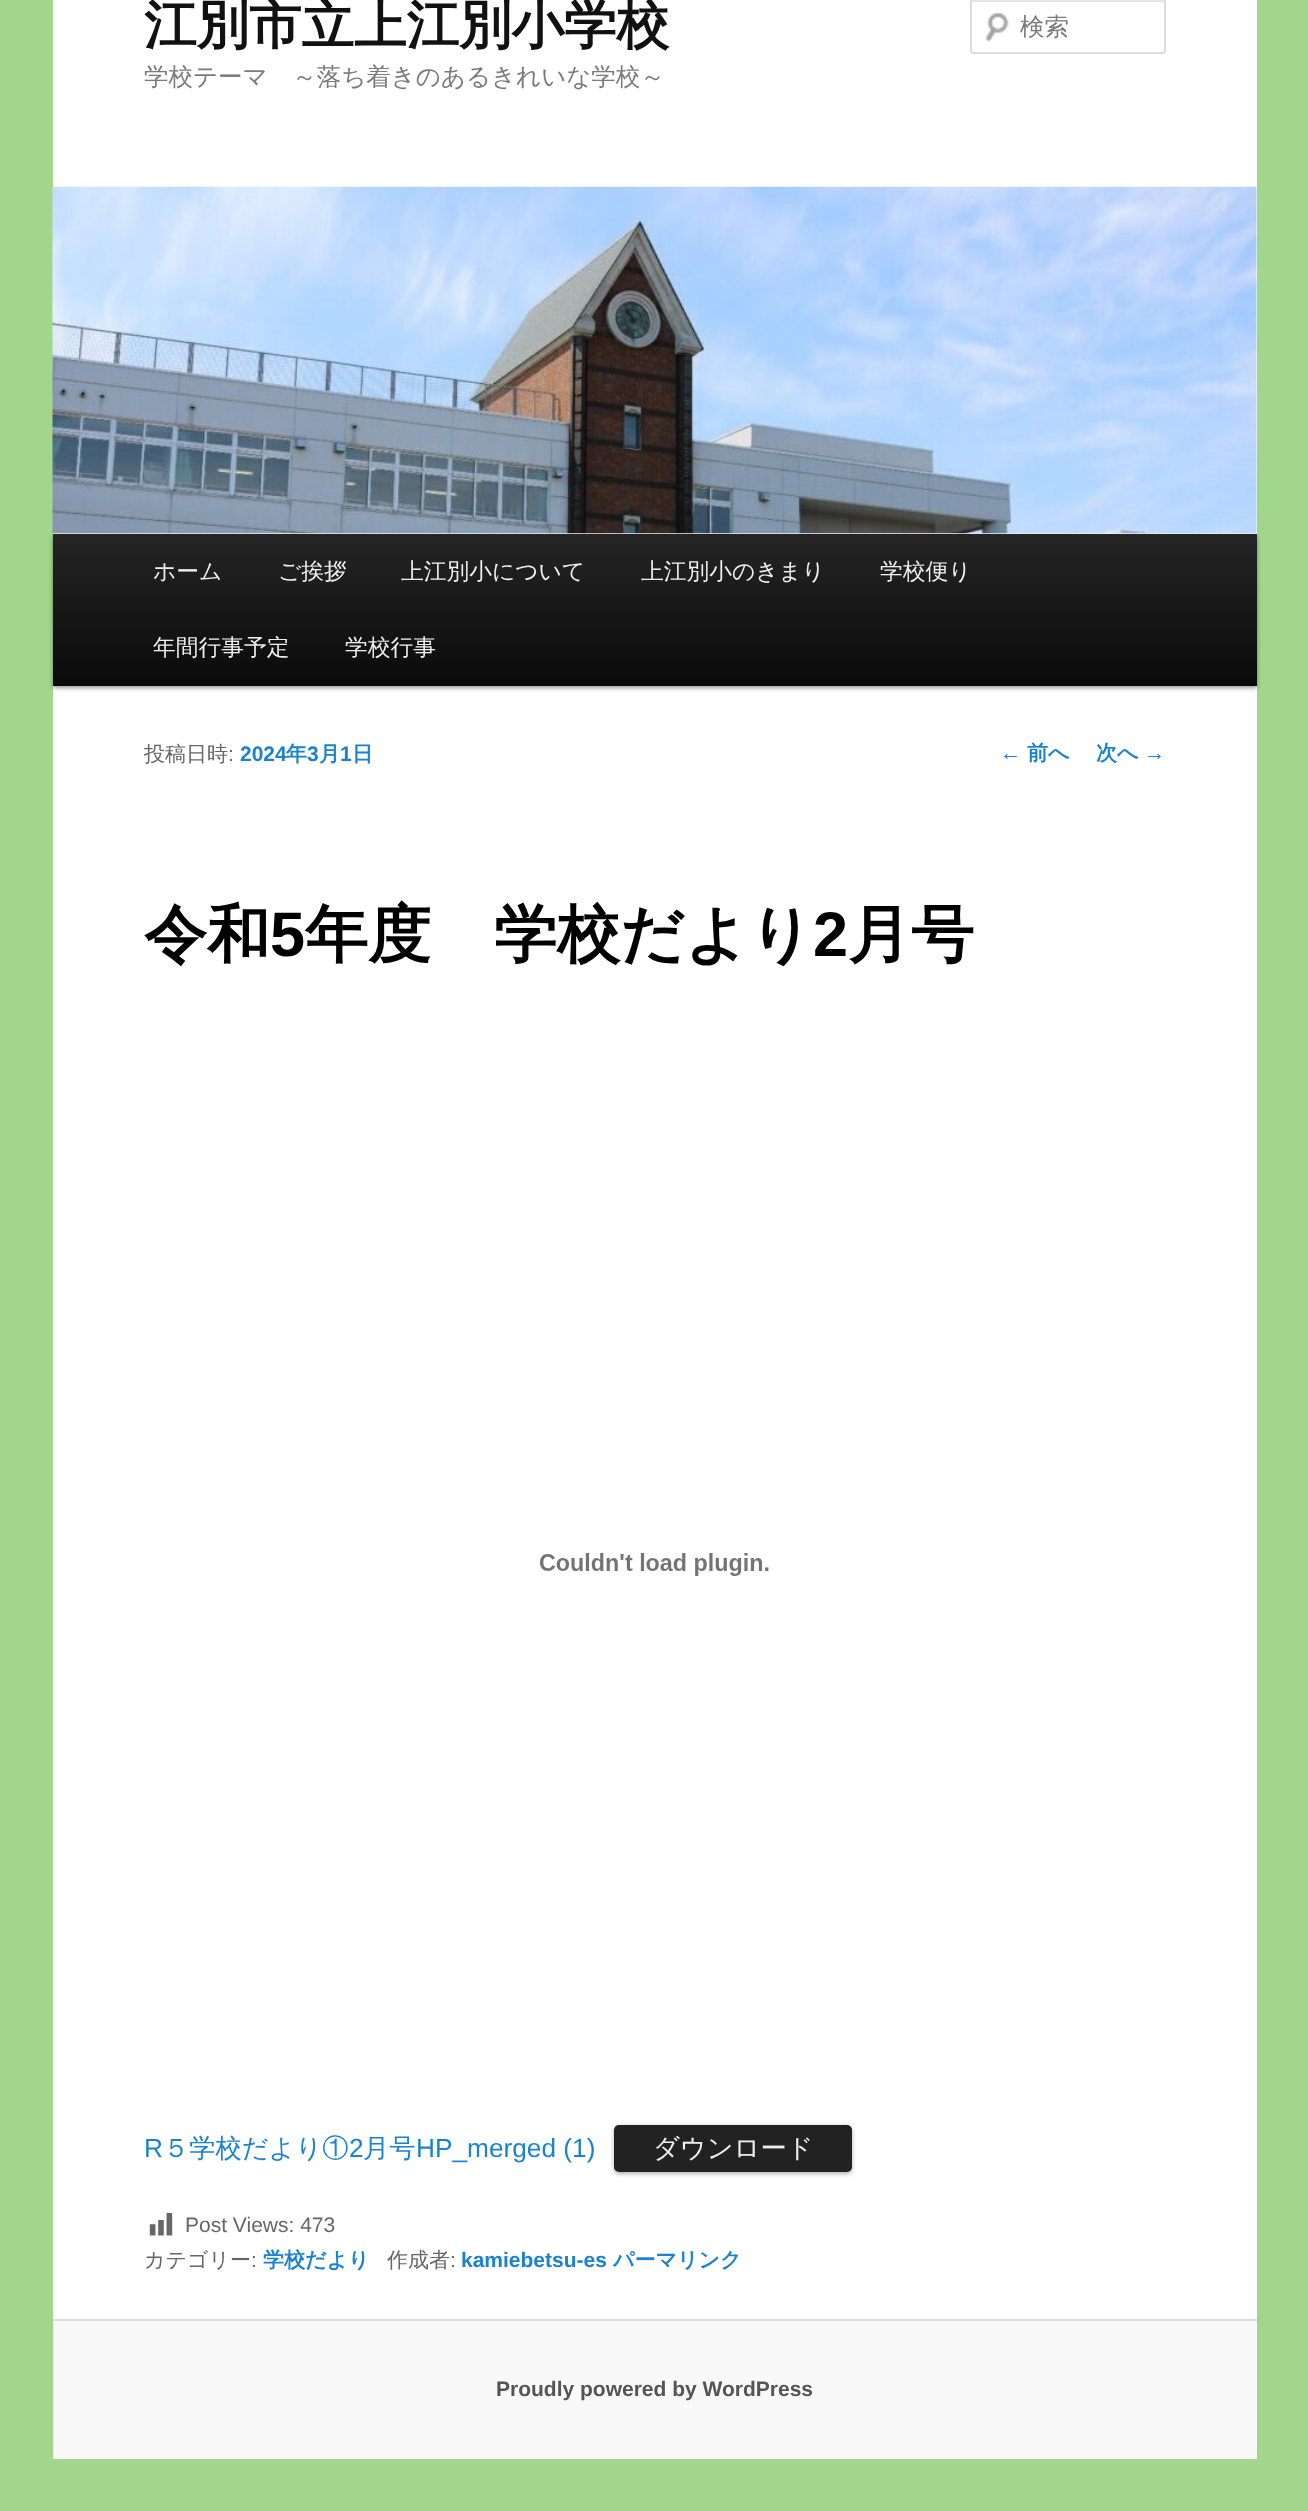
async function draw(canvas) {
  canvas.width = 1308
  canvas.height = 2511
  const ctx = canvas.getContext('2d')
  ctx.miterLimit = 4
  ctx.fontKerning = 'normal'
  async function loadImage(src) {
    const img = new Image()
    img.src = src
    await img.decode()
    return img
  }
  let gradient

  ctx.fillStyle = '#a2d68d'
  ctx.fillRect(0, 0, 1308, 2511)
  ctx.fillStyle = '#fff'
  ctx.fillRect(53, 0, 1204, 2319)
  ctx.font = 'bold 52.5px WenQuanYi Zen Hei'
  ctx.fillStyle = '#111'
  ctx.fillText('江別市立上江別小学校', 144, 43)
  ctx.font = '500 24.5px WenQuanYi Zen Hei'
  ctx.fillStyle = '#7a7a7a'
  ctx.fillText('学校テーマ　～落ち着きのあるきれいな学校～', 144, 85)
  ctx.drawImage(await loadImage('image0.png'), 985, 12, 24, 30)
  ctx.fillStyle = '#e6e6e6'
  ctx.beginPath()
  ctx.moveTo(973, 2)
  ctx.lineTo(1162, 2)
  ctx.lineTo(1164, 3)
  ctx.lineTo(1164, 4)
  ctx.bezierCurveTo(1164, 2, 1164, 0, 1162, 0)
  ctx.lineTo(973, 0)
  ctx.bezierCurveTo(971, 0, 971, 2, 971, 4)
  ctx.bezierCurveTo(971, 3, 972, 2, 973, 2)
  ctx.closePath()
  ctx.fill()
  ctx.beginPath()
  ctx.roundRect(971, -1, 194, 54, 3)
  ctx.strokeStyle = '#ddd'
  ctx.lineWidth = 2
  ctx.stroke()
  ctx.fillStyle = '#7a7a7a'
  ctx.fillText('検索', 1020, 35)
  ctx.fillStyle = '#00000066'
  ctx.filter = 'blur(2px)'
  ctx.beginPath()
  ctx.rect(53, 536, 1204, 152)
  ctx.fill()
  ctx.filter = 'none'
  ctx.drawImage(await loadImage('image1.png'), 52, 186, 1205, 348)
  gradient = ctx.createLinearGradient(655, 534, 655, 686)
  gradient.addColorStop(0, '#252525')
  gradient.addColorStop(1, '#0a0a0a')
  ctx.fillStyle = gradient
  ctx.fillRect(53, 534, 1204, 152)
  ctx.font = '500 22.75px WenQuanYi Zen Hei'
  ctx.fillStyle = '#eee'
  ctx.fillText('ホーム', 153, 579)
  ctx.fillText('ご挨拶', 278, 579)
  ctx.fillText('上江別小について', 401, 579)
  ctx.fillText('上江別小のきまり', 641, 579)
  ctx.fillText('学校便り', 880, 579)
  ctx.fillText('年間行事予定', 153, 655)
  ctx.fillText('学校行事', 345, 655)
  ctx.font = '500 21px WenQuanYi Zen Hei'
  ctx.fillStyle = '#666'
  ctx.fillText('投稿日時', 144, 761)
  ctx.font = '21px Liberation Sans'
  ctx.fillText(':', 228, 761)
  ctx.font = 'bold 21px Liberation Sans'
  ctx.fillStyle = '#1982d1'
  ctx.fillText('2024', 240, 761)
  ctx.font = 'bold 21px WenQuanYi Zen Hei'
  ctx.fillText('年', 286, 761)
  ctx.font = 'bold 21px Liberation Sans'
  ctx.fillText('3', 307, 761)
  ctx.font = 'bold 21px WenQuanYi Zen Hei'
  ctx.fillText('月', 319, 761)
  ctx.font = 'bold 21px Liberation Sans'
  ctx.fillText('1', 340, 761)
  ctx.font = 'bold 21px WenQuanYi Zen Hei'
  ctx.fillText('日', 352, 761)
  ctx.font = 'bold 63px WenQuanYi Zen Hei'
  ctx.fillStyle = '#000'
  ctx.fillText('令和', 144, 956)
  ctx.font = 'bold 63px Liberation Sans'
  ctx.fillText('5', 270, 956)
  ctx.font = 'bold 63px WenQuanYi Zen Hei'
  ctx.fillText('年度　学校だより', 305, 956)
  ctx.font = 'bold 63px Liberation Sans'
  ctx.fillText('2', 813, 956)
  ctx.font = 'bold 63px WenQuanYi Zen Hei'
  ctx.fillText('月号', 848, 956)
  ctx.drawImage(await loadImage('image2.png'), 540, 1553, 229, 23)
  ctx.font = '26.25px Liberation Sans'
  ctx.fillStyle = '#1982d1'
  ctx.fillText('R', 144, 2157)
  ctx.font = '500 26.25px WenQuanYi Zen Hei'
  ctx.fillText('５学校だより①', 163, 2157)
  ctx.font = '26.25px Liberation Sans'
  ctx.fillText('2', 349, 2157)
  ctx.font = '500 26.25px WenQuanYi Zen Hei'
  ctx.fillText('月号', 363, 2157)
  ctx.font = '26.25px Liberation Sans'
  ctx.fillText('HP_merged (1)', 416, 2157)
  ctx.fillStyle = '#0000004d'
  ctx.filter = 'blur(2px)'
  ctx.beginPath()
  ctx.roundRect(614, 2126, 238, 48, 5)
  ctx.fill()
  ctx.filter = 'none'
  ctx.fillStyle = '#222'
  ctx.beginPath()
  ctx.roundRect(614, 2125, 238, 47, 5)
  ctx.fill()
  ctx.font = '500 26.25px WenQuanYi Zen Hei'
  ctx.fillStyle = '#eee'
  ctx.fillText('ダウンロード', 653, 2157)
  ctx.drawImage(await loadImage('image3.png'), 149, 2213, 24, 23)
  ctx.font = '21px Liberation Sans'
  ctx.fillStyle = '#666'
  ctx.fillText('Post Views: 473', 185, 2232)
  ctx.font = '500 21px WenQuanYi Zen Hei'
  ctx.fillText('カテゴリー', 144, 2267)
  ctx.font = '21px Liberation Sans'
  ctx.fillText(':', 251, 2267)
  ctx.font = 'bold 21px WenQuanYi Zen Hei'
  ctx.fillStyle = '#1982d1'
  ctx.fillText('学校だより', 263, 2267)
  ctx.font = '500 21px WenQuanYi Zen Hei'
  ctx.fillStyle = '#666'
  ctx.fillText('作成者', 387, 2267)
  ctx.font = '21px Liberation Sans'
  ctx.fillText(':', 450, 2267)
  ctx.font = 'bold 21px Liberation Sans'
  ctx.fillStyle = '#1982d1'
  ctx.fillText('kamiebetsu-es', 461, 2267)
  ctx.font = 'bold 21px WenQuanYi Zen Hei'
  ctx.fillText('パーマリンク', 613, 2267)
  ctx.font = '21px Liberation Sans'
  ctx.fillText('←', 1000, 760)
  ctx.font = 'bold 21px WenQuanYi Zen Hei'
  ctx.fillText('前へ', 1027, 760)
  ctx.fillText('次へ', 1096, 760)
  ctx.font = '21px Liberation Sans'
  ctx.fillText('→', 1144, 760)
  ctx.fillStyle = '#f9f9f9'
  ctx.fillRect(53, 2321, 1204, 138)
  ctx.fillStyle = '#ddd'
  ctx.fillRect(53, 2319, 1204, 2)
  ctx.font = 'bold 21px Liberation Sans'
  ctx.fillStyle = '#555'
  ctx.fillText('Proudly powered by WordPress', 496, 2396)
}

draw(document.querySelector('canvas'))
